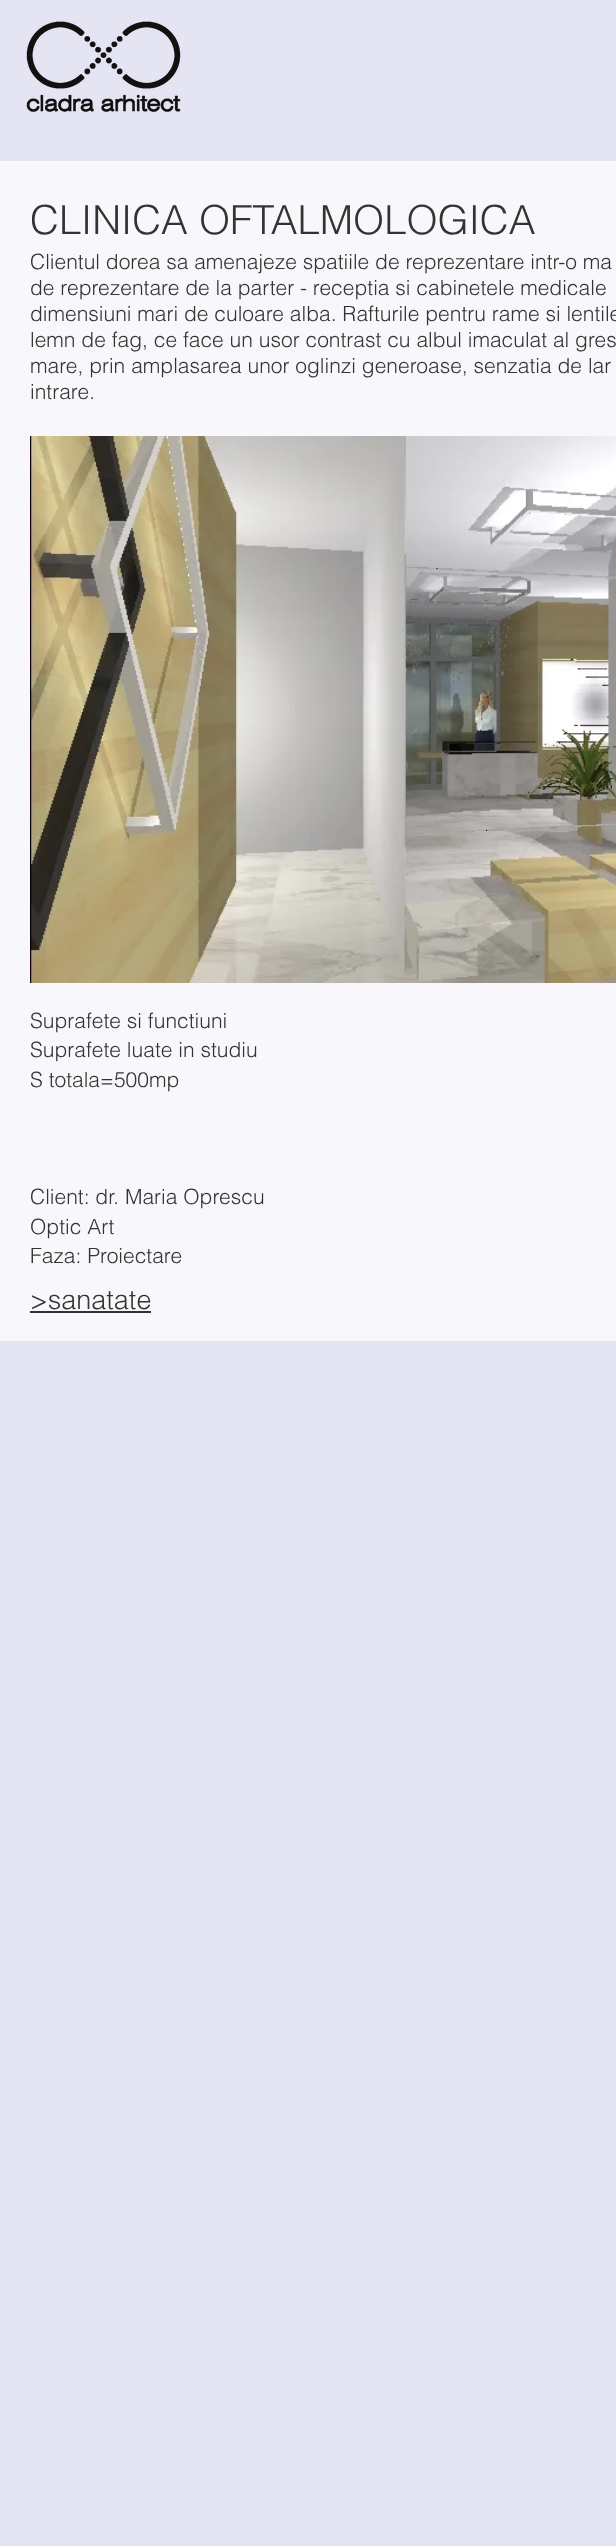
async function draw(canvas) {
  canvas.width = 616
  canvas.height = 2546
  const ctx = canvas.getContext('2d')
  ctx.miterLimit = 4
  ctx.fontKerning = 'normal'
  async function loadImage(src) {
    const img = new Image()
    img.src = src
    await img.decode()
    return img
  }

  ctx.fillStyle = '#e4e4f3'
  ctx.fillRect(0, 0, 616, 2546)
  ctx.drawImage(await loadImage('image0.png'), 26, 21, 155, 91)
  ctx.fillStyle = '#f8f8fc'
  ctx.fillRect(0, 161, 616, 1180)
  ctx.font = '300 40px helvetica'
  ctx.fillStyle = '#333330'
  ctx.fillText('CLINICA OFTALMOLOGICA', 30, 234)
  ctx.font = '300 21px helvetica'
  ctx.fillText('Clientul dorea sa amenajeze spatiile de reprezentare intr-o ma', 30, 269)
  ctx.fillText('de reprezentare de la parter - receptia si cabinetele medicale', 30, 295)
  ctx.fillText('dimensiuni mari de culoare alba. Rafturile pentru rame si lentile', 30, 321)
  ctx.fillText('lemn de fag, ce face un usor contrast cu albul imaculat al gres', 30, 347)
  ctx.fillText('mare, prin amplasarea unor oglinzi generoase, senzatia de lar', 30, 373)
  ctx.fillText('intrare.', 30, 399)
  ctx.drawImage(await loadImage('image1.png'), 30, 436, 586, 547)
  ctx.fillText('Suprafete si functiuni', 30, 1028)
  ctx.fillText('Suprafete luate in studiu', 30, 1057)
  ctx.fillText('S totala=500mp', 30, 1087)
  ctx.fillText('Client: dr. Maria Oprescu', 30, 1204)
  ctx.fillText('Optic Art', 30, 1234)
  ctx.fillText('Faza: Proiectare', 30, 1263)
  ctx.font = '300 27px helvetica'
  ctx.fillText('>sanatate', 30, 1309)
  ctx.fillRect(30, 1311, 121, 2)
}

draw(document.querySelector('canvas'))
